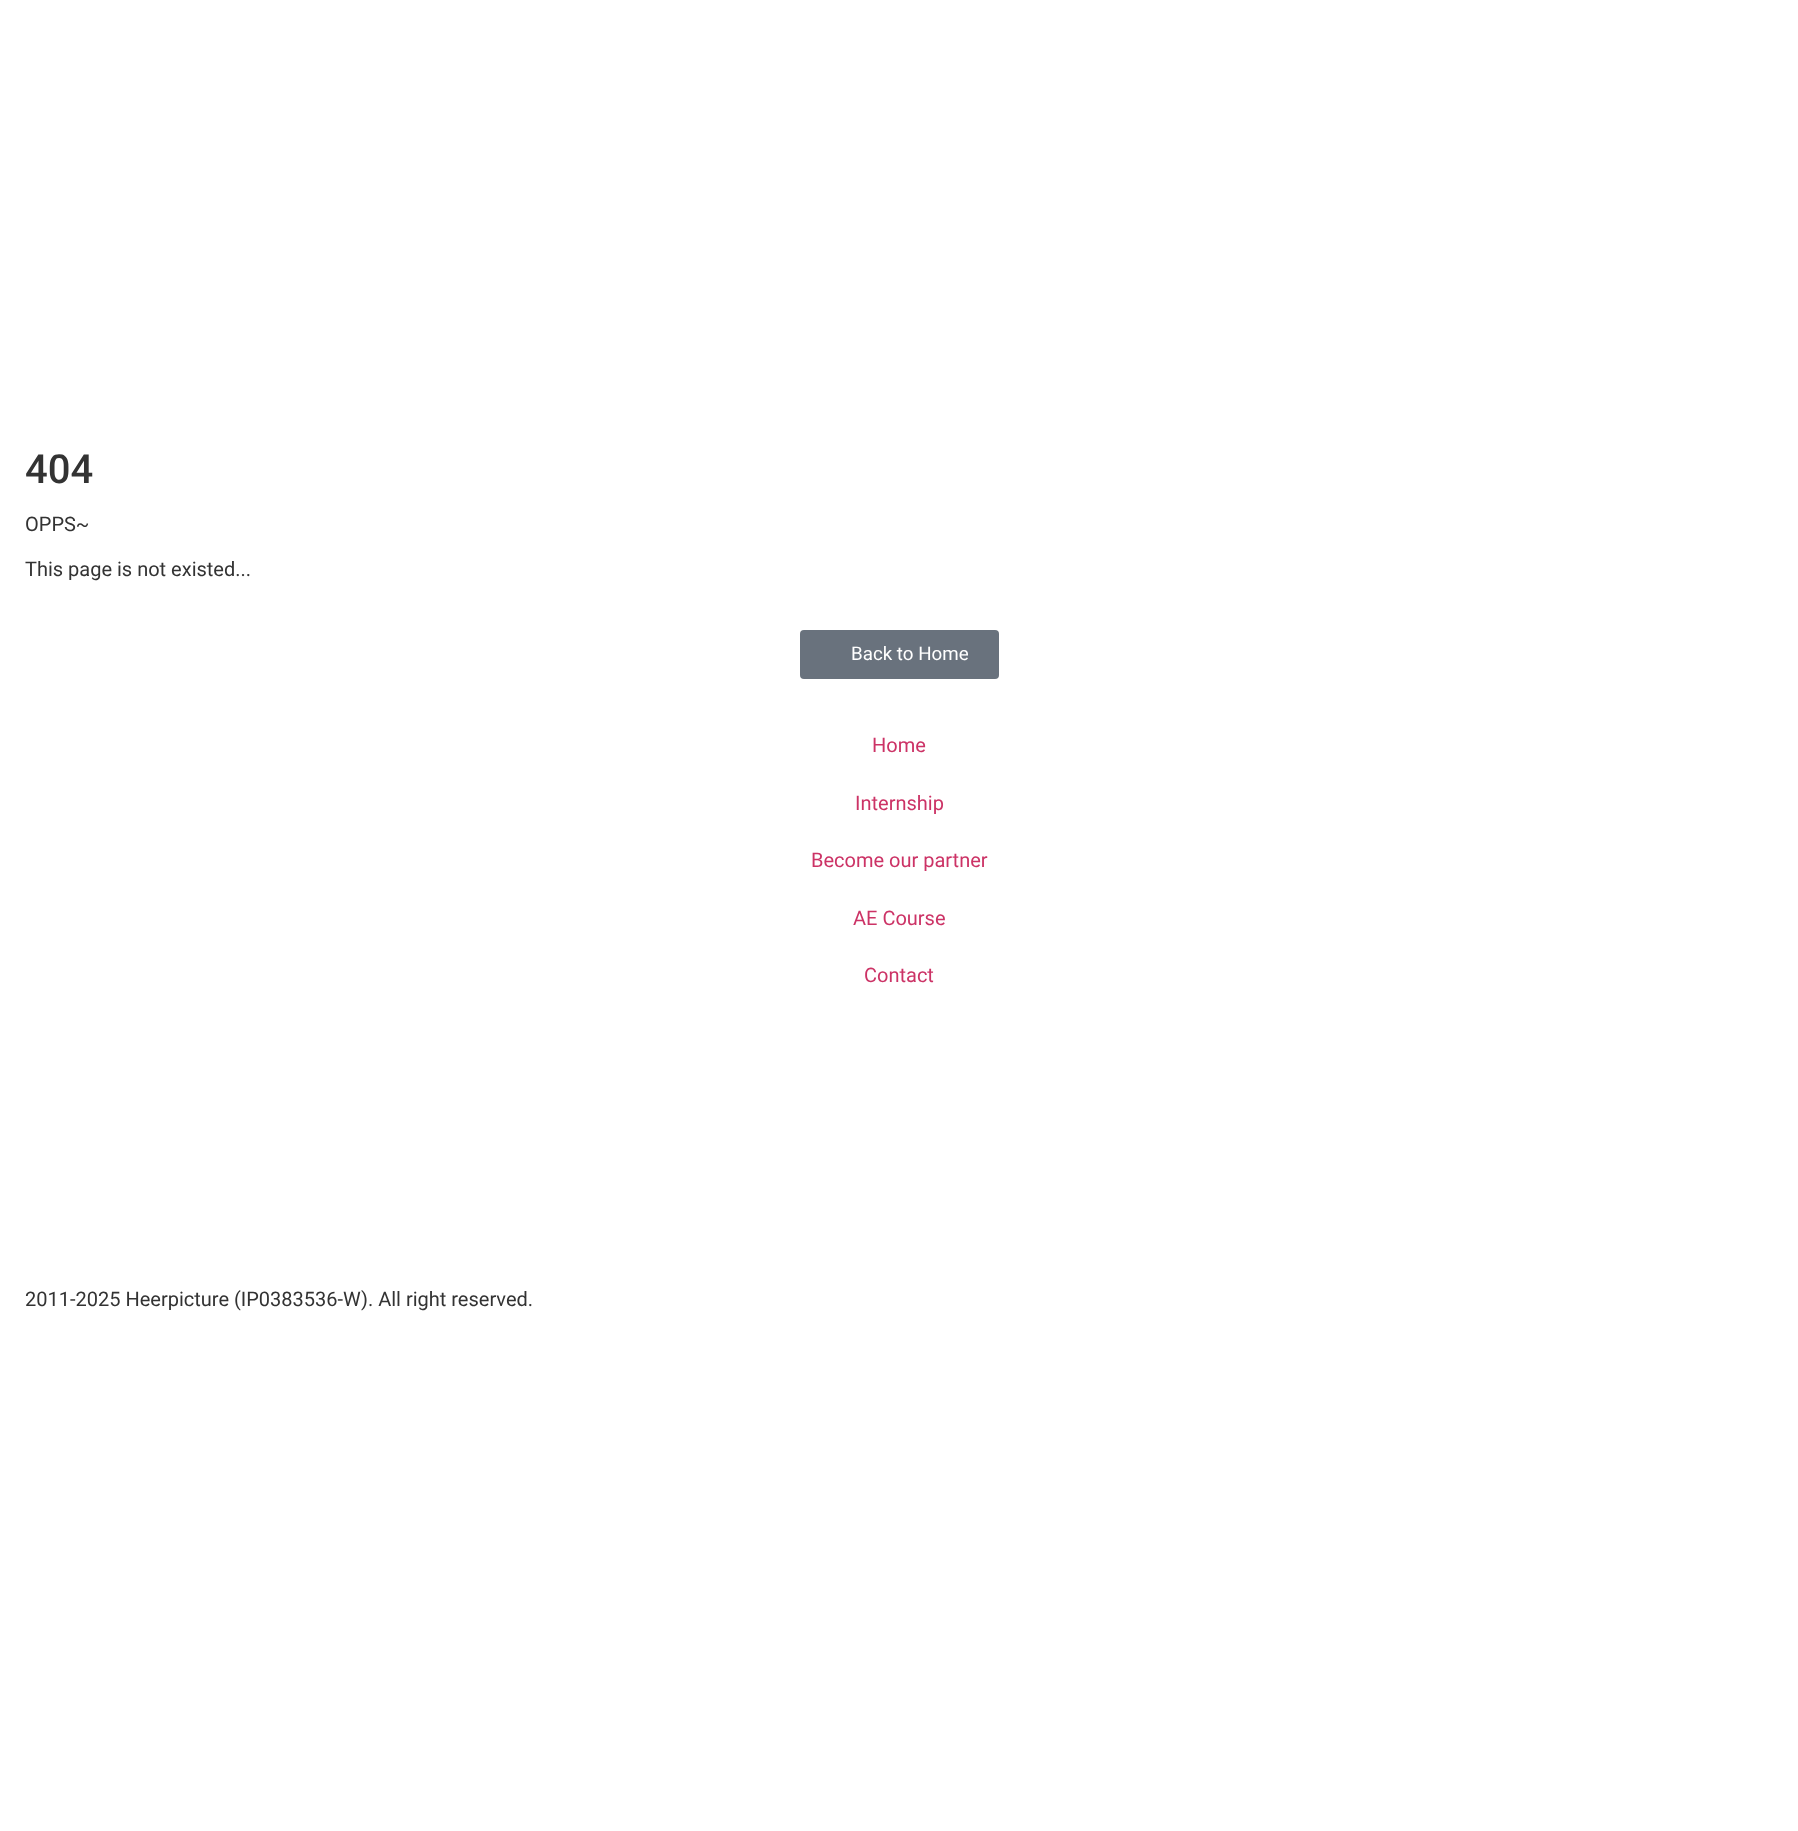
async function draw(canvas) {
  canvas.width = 1798
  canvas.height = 1831
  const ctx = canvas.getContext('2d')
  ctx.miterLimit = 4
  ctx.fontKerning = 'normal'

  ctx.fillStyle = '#fff'
  ctx.fillRect(0, 0, 1798, 1831)
  ctx.font = '500 40px Roboto'
  ctx.fillStyle = '#333'
  ctx.fillText('404', 25, 483)
  ctx.font = '20px Roboto'
  ctx.fillText('OPPS~', 25, 531)
  ctx.fillText('This page is not existed...', 25, 576)
  ctx.fillStyle = '#69727d'
  ctx.beginPath()
  ctx.roundRect(800, 630, 199, 49, 4)
  ctx.fill()
  ctx.font = '18.75px Roboto'
  ctx.fillStyle = '#fff'
  ctx.fillText('Back to Home', 851, 660)
  ctx.font = '20px Roboto'
  ctx.fillStyle = '#c36'
  ctx.fillText('Home', 872, 752)
  ctx.fillText('Internship', 855, 810)
  ctx.fillText('Become our partner', 811, 867)
  ctx.fillText('AE Course', 853, 925)
  ctx.fillText('Contact', 864, 982)
  ctx.fillStyle = '#333'
  ctx.fillText('2011-2025 Heerpicture (IP0383536-W). All right reserved.', 25, 1306)
}

draw(document.querySelector('canvas'))
